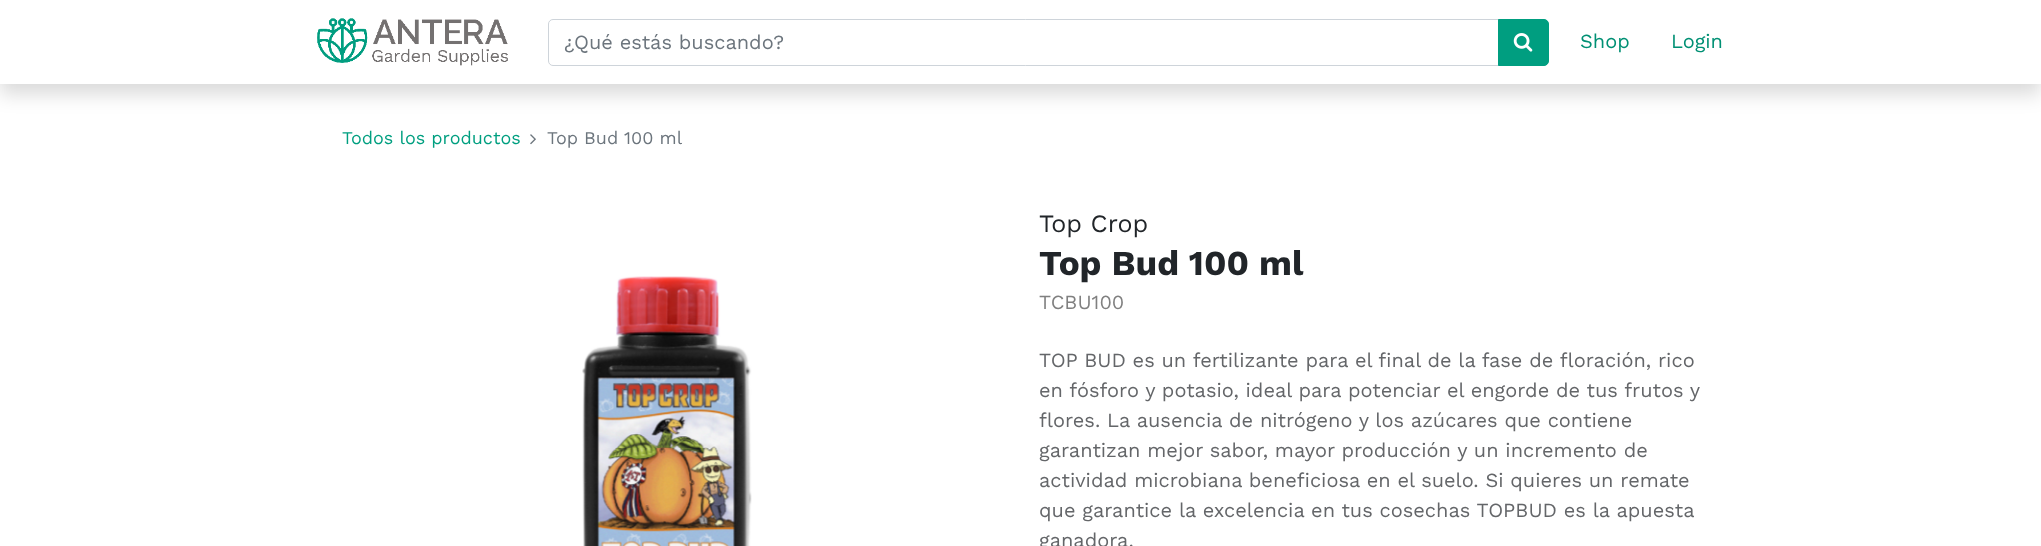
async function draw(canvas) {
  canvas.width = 2041
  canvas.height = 546
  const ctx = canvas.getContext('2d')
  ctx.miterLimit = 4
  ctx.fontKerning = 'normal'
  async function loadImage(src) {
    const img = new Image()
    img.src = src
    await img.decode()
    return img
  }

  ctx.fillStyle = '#fff'
  ctx.fillRect(0, 0, 2041, 546)
  ctx.save()
  ctx.beginPath()
  ctx.moveTo(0, 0)
  ctx.lineTo(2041, 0)
  ctx.lineTo(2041, 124)
  ctx.lineTo(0, 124)
  ctx.closePath()
  ctx.moveTo(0, 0)
  ctx.lineTo(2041, 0)
  ctx.lineTo(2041, 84)
  ctx.lineTo(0, 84)
  ctx.closePath()
  ctx.clip('evenodd')
  ctx.fillStyle = '#00000026'
  ctx.filter = 'blur(9.5px)'
  ctx.beginPath()
  ctx.rect(0, 10, 2041, 84)
  ctx.fill()
  ctx.filter = 'none'
  ctx.restore()
  ctx.drawImage(await loadImage('image0.png'), 317, 18, 191, 48)
  ctx.beginPath()
  ctx.roundRect(548.5, 19.5, 950, 46, [4.5, 0, 0, 4.5])
  ctx.strokeStyle = '#ced4da'
  ctx.stroke()
  ctx.font = '20px Work Sans'
  ctx.fillStyle = '#6c757d'
  ctx.fillText('¿Qué estás buscando?', 564, 49)
  ctx.fillStyle = '#009e80'
  ctx.beginPath()
  ctx.roundRect(1498.5, 19.5, 50, 46, [0, 4.5, 4.5, 0])
  ctx.fill()
  ctx.strokeStyle = '#009e80'
  ctx.stroke()
  ctx.drawImage(await loadImage('image1.png'), 1513, 33, 20, 19)
  ctx.fillStyle = '#009074'
  ctx.fillText('Shop', 1580, 48)
  ctx.fillText('Login', 1671, 48)
  ctx.font = '18px Work Sans'
  ctx.fillStyle = '#009f80'
  ctx.fillText('Todos los productos', 342, 144)
  ctx.drawImage(await loadImage('image2.png'), 530, 134, 6, 11)
  ctx.fillStyle = '#6c757d'
  ctx.fillText('Top Bud 100 ml', 547, 144)
  ctx.drawImage(await loadImage('image3.png'), 582, 276, 170, 270)
  ctx.font = '25px Work Sans'
  ctx.fillStyle = '#212529'
  ctx.fillText('Top Crop', 1039, 232)
  ctx.font = 'bold 35px Work Sans'
  ctx.fillText('Top Bud 100 ml', 1039, 275)
  ctx.font = '20px Work Sans'
  ctx.fillStyle = '#808080'
  ctx.fillText('TCBU100', 1039, 309)
  ctx.fillStyle = '#646669'
  ctx.fillText('TOP BUD es un fertilizante para el final de la fase de floración, rico', 1039, 367)
  ctx.fillText('en fósforo y potasio, ideal para potenciar el engorde de tus frutos y', 1039, 397)
  ctx.fillText('flores. La ausencia de nitrógeno y los azúcares que contiene', 1039, 427)
  ctx.fillText('garantizan mejor sabor, mayor producción y un incremento de', 1039, 457)
  ctx.fillText('actividad microbiana beneficiosa en el suelo. Si quieres un remate', 1039, 487)
  ctx.fillText('que garantice la excelencia en tus cosechas TOPBUD es la apuesta', 1039, 517)
  ctx.fillText('ganadora.', 1039, 547)
}

draw(document.querySelector('canvas'))
